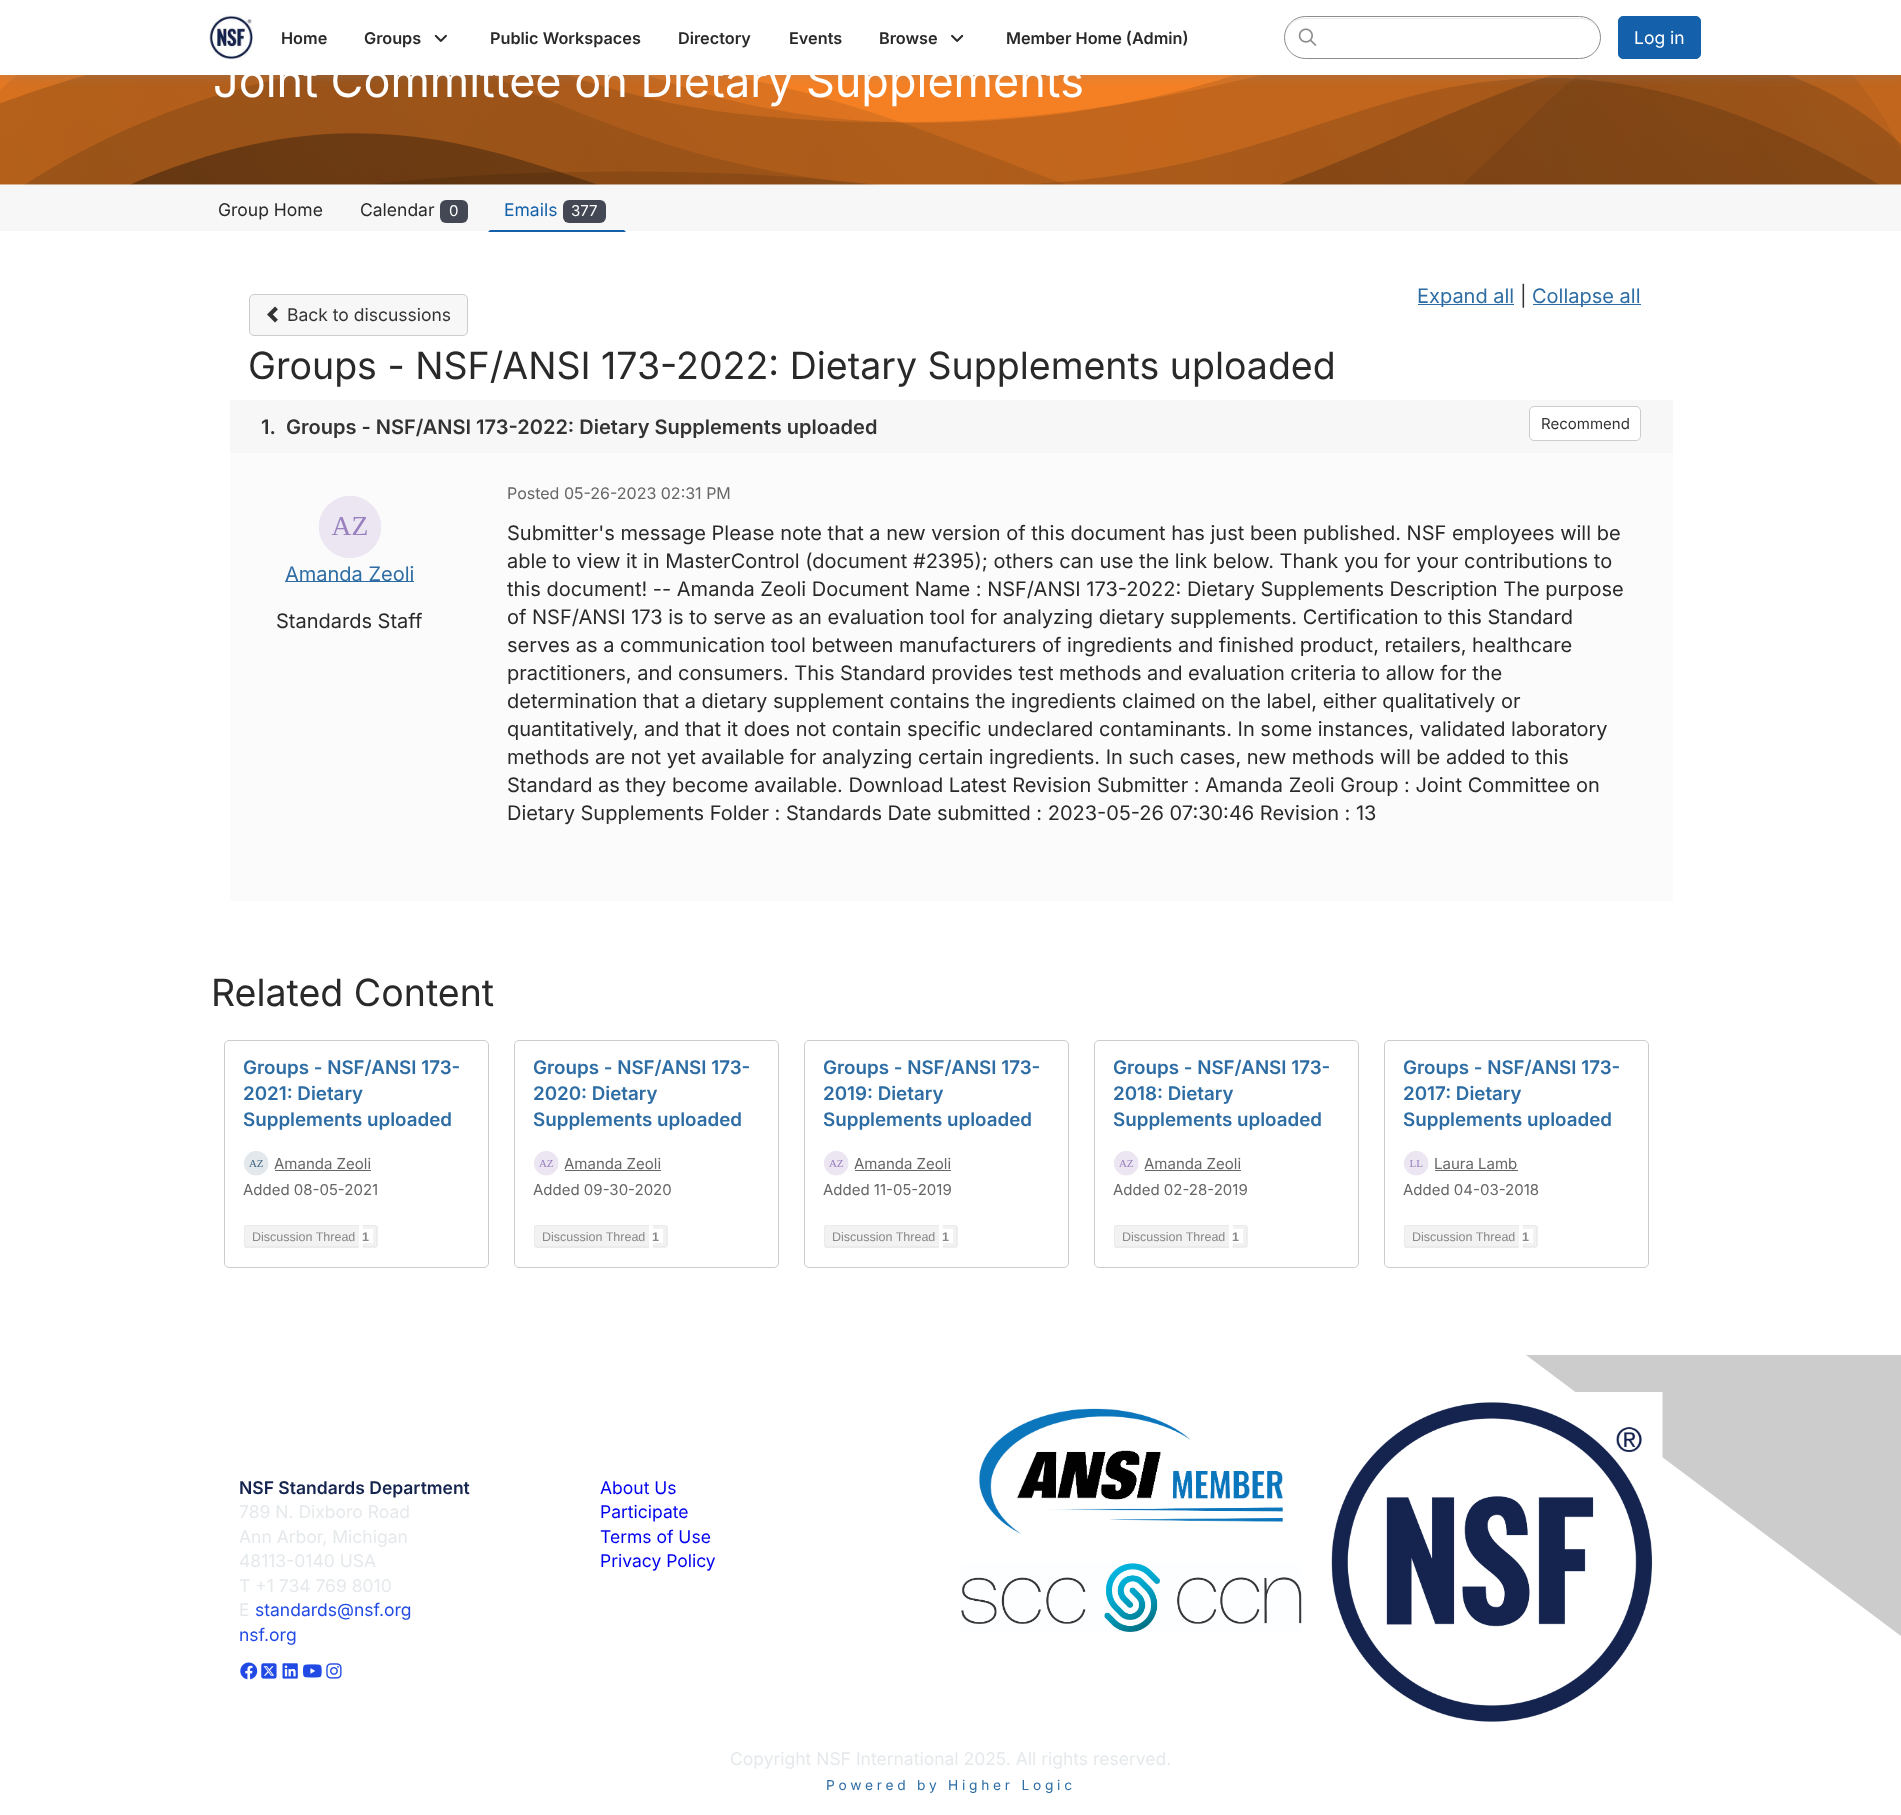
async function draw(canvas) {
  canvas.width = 1901
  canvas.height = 1815
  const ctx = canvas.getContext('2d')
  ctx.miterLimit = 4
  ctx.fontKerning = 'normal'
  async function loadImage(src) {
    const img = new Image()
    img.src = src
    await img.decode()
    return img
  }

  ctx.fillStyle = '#fff'
  ctx.fillRect(0, 0, 1901, 1815)
  ctx.drawImage(await loadImage('image4.png'), 0, 75, 1901, 110)
  ctx.fillStyle = '#8387913d'
  ctx.filter = 'blur(5px)'
  ctx.beginPath()
  ctx.rect(0, 3, 1901, 75)
  ctx.fill()
  ctx.filter = 'none'
  ctx.fillStyle = '#fff'
  ctx.fillRect(0, 0, 1901, 75)
  ctx.drawImage(await loadImage('image0.png'), 209, 15, 45, 45)
  ctx.font = '600 16.25px Inter'
  ctx.fillStyle = '#292929'
  ctx.fillText('Home', 281, 44)
  ctx.fillText('Groups', 364, 44)
  ctx.drawImage(await loadImage('image1.png'), 434, 34, 13, 8)
  ctx.fillText('Public Workspaces', 490, 44)
  ctx.fillText('Directory', 678, 44)
  ctx.fillText('Events', 789, 44)
  ctx.fillText('Browse', 879, 44)
  ctx.drawImage(await loadImage('image2.png'), 951, 34, 13, 8)
  ctx.fillText('Member Home (Admin)', 1006, 44)
  ctx.fillStyle = '#ececec'
  ctx.beginPath()
  ctx.moveTo(1305, 19)
  ctx.lineTo(1580, 19)
  ctx.bezierCurveTo(1591, 19, 1600, 28, 1600, 39)
  ctx.bezierCurveTo(1600, 27, 1591, 18, 1580, 18)
  ctx.lineTo(1305, 18)
  ctx.bezierCurveTo(1294, 18, 1285, 27, 1285, 39)
  ctx.bezierCurveTo(1285, 28, 1294, 19, 1305, 19)
  ctx.closePath()
  ctx.fill()
  ctx.beginPath()
  ctx.roundRect(1284.5, 16.5, 316, 42, 21)
  ctx.strokeStyle = '#8c8c8c'
  ctx.stroke()
  ctx.drawImage(await loadImage('image3.png'), 1298, 28, 19, 18)
  ctx.fillStyle = '#1460aa'
  ctx.beginPath()
  ctx.roundRect(1618.5, 16.5, 82, 42, 4.5)
  ctx.fill()
  ctx.strokeStyle = '#1460aa'
  ctx.stroke()
  ctx.font = '17.5px Inter'
  ctx.fillStyle = '#fff'
  ctx.fillText('Log in', 1634, 44)
  ctx.font = '45px Inter'
  ctx.fillText('Joint Committee on Dietary Supplements', 213, 97)
  ctx.fillStyle = '#f7f7f7'
  ctx.fillRect(0, 185, 1901, 46)
  ctx.font = '17.5px Inter'
  ctx.fillStyle = '#292929'
  ctx.fillText('Group Home', 218, 216)
  ctx.fillText('Calendar', 360, 216)
  ctx.fillStyle = '#444855'
  ctx.beginPath()
  ctx.roundRect(440, 200, 28, 23, 6)
  ctx.fill()
  ctx.font = '15px Inter'
  ctx.fillStyle = '#fff'
  ctx.fillText('0', 449, 216)
  ctx.fillStyle = '#1460aa'
  ctx.beginPath()
  ctx.moveTo(626, 232)
  ctx.lineTo(488, 232)
  ctx.lineTo(490, 230)
  ctx.lineTo(624, 230)
  ctx.closePath()
  ctx.fill()
  ctx.font = '17.5px Inter'
  ctx.fillText('Emails', 504, 216)
  ctx.fillStyle = '#444855'
  ctx.beginPath()
  ctx.roundRect(563, 200, 43, 23, 6)
  ctx.fill()
  ctx.font = '15px Inter'
  ctx.fillStyle = '#fff'
  ctx.fillText('377', 571, 216)
  ctx.fillStyle = '#2e6da4'
  ctx.fillRect(1418, 304, 96, 1)
  ctx.font = '20px Inter'
  ctx.fillText('Expand all', 1417, 303)
  ctx.fillStyle = '#333'
  ctx.fillText('|', 1520, 303)
  ctx.fillStyle = '#2e6da4'
  ctx.fillRect(1533, 304, 108, 1)
  ctx.fillText('Collapse all', 1532, 303)
  ctx.fillStyle = '#f7f7f7'
  ctx.beginPath()
  ctx.roundRect(249.5, 294.5, 218, 41, 4.5)
  ctx.fill()
  ctx.strokeStyle = '#ccc'
  ctx.stroke()
  ctx.drawImage(await loadImage('image5.png'), 267, 306, 11, 17)
  ctx.font = '17.5px Inter'
  ctx.fillStyle = '#333'
  ctx.fillText('Back to discussions', 287, 321)
  ctx.font = '37.5px Inter'
  ctx.fillStyle = '#292929'
  ctx.fillText('Groups - NSF/ANSI 173-2022: Dietary Supplements uploaded', 248, 379)
  ctx.fillStyle = '#fbfbfb'
  ctx.fillRect(230, 453, 1443, 448)
  ctx.fillStyle = '#f7f7f7'
  ctx.fillRect(230, 400, 1443, 53)
  ctx.font = '600 20px Inter'
  ctx.fillStyle = '#333'
  ctx.fillText('1.', 261, 434)
  ctx.fillText('Groups - NSF/ANSI 173-2022: Dietary Supplements uploaded', 286, 434)
  ctx.fillStyle = '#fff'
  ctx.beginPath()
  ctx.roundRect(1529.5, 406.5, 111, 34, 4.5)
  ctx.fill()
  ctx.stroke()
  ctx.font = '15px Inter'
  ctx.fillStyle = '#333'
  ctx.fillText('Recommend', 1541, 429)
  ctx.drawImage(await loadImage('image6.png'), 319, 496, 62, 62)
  ctx.fillStyle = '#2e6da4'
  ctx.fillRect(285, 581, 129, 1)
  ctx.font = '20px Inter'
  ctx.fillText('Amanda Zeoli', 285, 581)
  ctx.fillStyle = '#292929'
  ctx.fillText('Standards Staff', 276, 628)
  ctx.font = '16px Inter'
  ctx.fillStyle = '#666'
  ctx.fillText('Posted 05-26-2023 02:31 PM', 507, 499)
  ctx.font = '20px Inter'
  ctx.fillStyle = '#292929'
  ctx.fillText('Submitter\'s message Please note that a new version of this document has just been published. NSF employees will be', 507, 540)
  ctx.fillText('able to view it in MasterControl (document #2395); others can use the link below. Thank you for your contributions to', 507, 568)
  ctx.fillText('this document! -- Amanda Zeoli Document Name : NSF/ANSI 173-2022: Dietary Supplements Description The purpose', 507, 596)
  ctx.fillText('of NSF/ANSI 173 is to serve as an evaluation tool for analyzing dietary supplements. Certification to this Standard', 507, 624)
  ctx.fillText('serves as a communication tool between manufacturers of ingredients and finished product, retailers, healthcare', 507, 652)
  ctx.fillText('practitioners, and consumers. This Standard provides test methods and evaluation criteria to allow for the', 507, 680)
  ctx.fillText('determination that a dietary supplement contains the ingredients claimed on the label, either qualitatively or', 507, 708)
  ctx.fillText('quantitatively, and that it does not contain specific undeclared contaminants. In some instances, validated laboratory', 507, 736)
  ctx.fillText('methods are not yet available for analyzing certain ingredients. In such cases, new methods will be added to this', 507, 764)
  ctx.fillText('Standard as they become available. Download Latest Revision Submitter : Amanda Zeoli Group : Joint Committee on', 507, 792)
  ctx.fillText('Dietary Supplements Folder : Standards Date submitted : 2023-05-26 07:30:46 Revision : 13', 507, 820)
  ctx.font = '37.5px Inter'
  ctx.fillText('Related Content', 211, 1006)
  ctx.beginPath()
  ctx.roundRect(224.5, 1040.5, 264, 227, 4.5)
  ctx.stroke()
  ctx.font = '600 18.75px Inter'
  ctx.fillStyle = '#2e6da4'
  ctx.fillText('Groups - NSF/ANSI 173-', 243, 1074)
  ctx.fillText('2021: Dietary', 243, 1100)
  ctx.fillText('Supplements uploaded', 243, 1126)
  ctx.drawImage(await loadImage('image7.png'), 244, 1151, 25, 25)
  ctx.font = '15px Inter'
  ctx.fillStyle = '#666'
  ctx.fillText('Amanda Zeoli', 274, 1169)
  ctx.fillRect(275, 1170, 96, 1)
  ctx.fillText('Added 08-05-2021', 243, 1195)
  ctx.fillStyle = '#f2f2f2'
  ctx.beginPath()
  ctx.roundRect(244, 1225, 115, 23, [3, 0, 0, 3])
  ctx.fill()
  ctx.fillStyle = '#ebebeb'
  ctx.beginPath()
  ctx.moveTo(247, 1225)
  ctx.lineTo(359, 1225)
  ctx.lineTo(359, 1248)
  ctx.lineTo(247, 1248)
  ctx.bezierCurveTo(245, 1248, 244, 1246, 244, 1244)
  ctx.lineTo(244, 1228)
  ctx.bezierCurveTo(244, 1226, 245, 1225, 247, 1225)
  ctx.closePath()
  ctx.moveTo(247, 1226)
  ctx.lineTo(359, 1226)
  ctx.lineTo(359, 1246)
  ctx.lineTo(247, 1246)
  ctx.bezierCurveTo(246, 1246, 245, 1245, 245, 1244)
  ctx.lineTo(245, 1228)
  ctx.bezierCurveTo(245, 1227, 246, 1226, 247, 1226)
  ctx.closePath()
  ctx.fill('evenodd')
  ctx.font = '12.5px Liberation Sans'
  ctx.fillStyle = '#888'
  ctx.fillText('Discussion Thread', 252, 1241)
  ctx.fillStyle = '#f2f2f2'
  ctx.beginPath()
  ctx.roundRect(363, 1225, 15, 23, [0, 3, 3, 0])
  ctx.fill()
  ctx.fillStyle = '#ebebeb'
  ctx.beginPath()
  ctx.moveTo(362.5, 1225)
  ctx.lineTo(374.5, 1225)
  ctx.bezierCurveTo(376, 1225, 377.5, 1226.5, 377.5, 1228)
  ctx.lineTo(377.5, 1244.5)
  ctx.bezierCurveTo(377.5, 1246, 376, 1247.5, 374.5, 1247.5)
  ctx.lineTo(362.5, 1247.5)
  ctx.closePath()
  ctx.moveTo(362.5, 1226)
  ctx.lineTo(374.5, 1226)
  ctx.bezierCurveTo(375.5, 1226, 376, 1227, 376, 1228)
  ctx.lineTo(376, 1244.5)
  ctx.bezierCurveTo(376, 1245.5, 375.5, 1246, 374.5, 1246)
  ctx.lineTo(362.5, 1246)
  ctx.closePath()
  ctx.fill('evenodd')
  ctx.fillStyle = '#fff'
  ctx.fillRect(363, 1229, 10, 14)
  ctx.font = 'bold 12.5px Liberation Sans'
  ctx.fillStyle = '#888'
  ctx.fillText('1', 362, 1241)
  ctx.beginPath()
  ctx.roundRect(514.5, 1040.5, 264, 227, 4.5)
  ctx.stroke()
  ctx.font = '600 18.75px Inter'
  ctx.fillStyle = '#2e6da4'
  ctx.fillText('Groups - NSF/ANSI 173-', 533, 1074)
  ctx.fillText('2020: Dietary', 533, 1100)
  ctx.fillText('Supplements uploaded', 533, 1126)
  ctx.drawImage(await loadImage('image8.png'), 534, 1151, 25, 25)
  ctx.font = '15px Inter'
  ctx.fillStyle = '#666'
  ctx.fillText('Amanda Zeoli', 564, 1169)
  ctx.fillRect(565, 1170, 96, 1)
  ctx.fillText('Added 09-30-2020', 533, 1195)
  ctx.fillStyle = '#f2f2f2'
  ctx.beginPath()
  ctx.roundRect(534, 1225, 115, 23, [3, 0, 0, 3])
  ctx.fill()
  ctx.fillStyle = '#ebebeb'
  ctx.beginPath()
  ctx.moveTo(537, 1225)
  ctx.lineTo(649, 1225)
  ctx.lineTo(649, 1248)
  ctx.lineTo(537, 1248)
  ctx.bezierCurveTo(535, 1248, 534, 1246, 534, 1244)
  ctx.lineTo(534, 1228)
  ctx.bezierCurveTo(534, 1226, 535, 1225, 537, 1225)
  ctx.closePath()
  ctx.moveTo(537, 1226)
  ctx.lineTo(649, 1226)
  ctx.lineTo(649, 1246)
  ctx.lineTo(537, 1246)
  ctx.bezierCurveTo(536, 1246, 535, 1245, 535, 1244)
  ctx.lineTo(535, 1228)
  ctx.bezierCurveTo(535, 1227, 536, 1226, 537, 1226)
  ctx.closePath()
  ctx.fill('evenodd')
  ctx.font = '12.5px Liberation Sans'
  ctx.fillStyle = '#888'
  ctx.fillText('Discussion Thread', 542, 1241)
  ctx.fillStyle = '#f2f2f2'
  ctx.beginPath()
  ctx.roundRect(653, 1225, 15, 23, [0, 3, 3, 0])
  ctx.fill()
  ctx.fillStyle = '#ebebeb'
  ctx.beginPath()
  ctx.moveTo(652.5, 1225)
  ctx.lineTo(664.5, 1225)
  ctx.bezierCurveTo(666, 1225, 667.5, 1226.5, 667.5, 1228)
  ctx.lineTo(667.5, 1244.5)
  ctx.bezierCurveTo(667.5, 1246, 666, 1247.5, 664.5, 1247.5)
  ctx.lineTo(652.5, 1247.5)
  ctx.closePath()
  ctx.moveTo(652.5, 1226)
  ctx.lineTo(664.5, 1226)
  ctx.bezierCurveTo(665.5, 1226, 666, 1227, 666, 1228)
  ctx.lineTo(666, 1244.5)
  ctx.bezierCurveTo(666, 1245.5, 665.5, 1246, 664.5, 1246)
  ctx.lineTo(652.5, 1246)
  ctx.closePath()
  ctx.fill('evenodd')
  ctx.fillStyle = '#fff'
  ctx.fillRect(653, 1229, 10, 14)
  ctx.font = 'bold 12.5px Liberation Sans'
  ctx.fillStyle = '#888'
  ctx.fillText('1', 652, 1241)
  ctx.beginPath()
  ctx.roundRect(804.5, 1040.5, 264, 227, 4.5)
  ctx.stroke()
  ctx.font = '600 18.75px Inter'
  ctx.fillStyle = '#2e6da4'
  ctx.fillText('Groups - NSF/ANSI 173-', 823, 1074)
  ctx.fillText('2019: Dietary', 823, 1100)
  ctx.fillText('Supplements uploaded', 823, 1126)
  ctx.drawImage(await loadImage('image8.png'), 824, 1151, 25, 25)
  ctx.font = '15px Inter'
  ctx.fillStyle = '#666'
  ctx.fillText('Amanda Zeoli', 854, 1169)
  ctx.fillRect(855, 1170, 96, 1)
  ctx.fillText('Added 11-05-2019', 823, 1195)
  ctx.fillStyle = '#f2f2f2'
  ctx.beginPath()
  ctx.roundRect(824, 1225, 115, 23, [3, 0, 0, 3])
  ctx.fill()
  ctx.fillStyle = '#ebebeb'
  ctx.beginPath()
  ctx.moveTo(827, 1225)
  ctx.lineTo(939, 1225)
  ctx.lineTo(939, 1248)
  ctx.lineTo(827, 1248)
  ctx.bezierCurveTo(825, 1248, 824, 1246, 824, 1244)
  ctx.lineTo(824, 1228)
  ctx.bezierCurveTo(824, 1226, 825, 1225, 827, 1225)
  ctx.closePath()
  ctx.moveTo(827, 1226)
  ctx.lineTo(939, 1226)
  ctx.lineTo(939, 1246)
  ctx.lineTo(827, 1246)
  ctx.bezierCurveTo(826, 1246, 825, 1245, 825, 1244)
  ctx.lineTo(825, 1228)
  ctx.bezierCurveTo(825, 1227, 826, 1226, 827, 1226)
  ctx.closePath()
  ctx.fill('evenodd')
  ctx.font = '12.5px Liberation Sans'
  ctx.fillStyle = '#888'
  ctx.fillText('Discussion Thread', 832, 1241)
  ctx.fillStyle = '#f2f2f2'
  ctx.beginPath()
  ctx.roundRect(943, 1225, 15, 23, [0, 3, 3, 0])
  ctx.fill()
  ctx.fillStyle = '#ebebeb'
  ctx.beginPath()
  ctx.moveTo(942.5, 1225)
  ctx.lineTo(954.5, 1225)
  ctx.bezierCurveTo(956, 1225, 957.5, 1226.5, 957.5, 1228)
  ctx.lineTo(957.5, 1244.5)
  ctx.bezierCurveTo(957.5, 1246, 956, 1247.5, 954.5, 1247.5)
  ctx.lineTo(942.5, 1247.5)
  ctx.closePath()
  ctx.moveTo(942.5, 1226)
  ctx.lineTo(954.5, 1226)
  ctx.bezierCurveTo(955.5, 1226, 956, 1227, 956, 1228)
  ctx.lineTo(956, 1244.5)
  ctx.bezierCurveTo(956, 1245.5, 955.5, 1246, 954.5, 1246)
  ctx.lineTo(942.5, 1246)
  ctx.closePath()
  ctx.fill('evenodd')
  ctx.fillStyle = '#fff'
  ctx.fillRect(943, 1229, 10, 14)
  ctx.font = 'bold 12.5px Liberation Sans'
  ctx.fillStyle = '#888'
  ctx.fillText('1', 942, 1241)
  ctx.beginPath()
  ctx.roundRect(1094.5, 1040.5, 264, 227, 4.5)
  ctx.stroke()
  ctx.font = '600 18.75px Inter'
  ctx.fillStyle = '#2e6da4'
  ctx.fillText('Groups - NSF/ANSI 173-', 1113, 1074)
  ctx.fillText('2018: Dietary', 1113, 1100)
  ctx.fillText('Supplements uploaded', 1113, 1126)
  ctx.drawImage(await loadImage('image8.png'), 1114, 1151, 25, 25)
  ctx.font = '15px Inter'
  ctx.fillStyle = '#666'
  ctx.fillText('Amanda Zeoli', 1144, 1169)
  ctx.fillRect(1145, 1170, 96, 1)
  ctx.fillText('Added 02-28-2019', 1113, 1195)
  ctx.fillStyle = '#f2f2f2'
  ctx.beginPath()
  ctx.roundRect(1114, 1225, 115, 23, [3, 0, 0, 3])
  ctx.fill()
  ctx.fillStyle = '#ebebeb'
  ctx.beginPath()
  ctx.moveTo(1117, 1225)
  ctx.lineTo(1229, 1225)
  ctx.lineTo(1229, 1248)
  ctx.lineTo(1117, 1248)
  ctx.bezierCurveTo(1115, 1248, 1114, 1246, 1114, 1244)
  ctx.lineTo(1114, 1228)
  ctx.bezierCurveTo(1114, 1226, 1115, 1225, 1117, 1225)
  ctx.closePath()
  ctx.moveTo(1117, 1226)
  ctx.lineTo(1229, 1226)
  ctx.lineTo(1229, 1246)
  ctx.lineTo(1117, 1246)
  ctx.bezierCurveTo(1116, 1246, 1115, 1245, 1115, 1244)
  ctx.lineTo(1115, 1228)
  ctx.bezierCurveTo(1115, 1227, 1116, 1226, 1117, 1226)
  ctx.closePath()
  ctx.fill('evenodd')
  ctx.font = '12.5px Liberation Sans'
  ctx.fillStyle = '#888'
  ctx.fillText('Discussion Thread', 1122, 1241)
  ctx.fillStyle = '#f2f2f2'
  ctx.beginPath()
  ctx.roundRect(1233, 1225, 15, 23, [0, 3, 3, 0])
  ctx.fill()
  ctx.fillStyle = '#ebebeb'
  ctx.beginPath()
  ctx.moveTo(1232.5, 1225)
  ctx.lineTo(1244.5, 1225)
  ctx.bezierCurveTo(1246, 1225, 1247.5, 1226.5, 1247.5, 1228)
  ctx.lineTo(1247.5, 1244.5)
  ctx.bezierCurveTo(1247.5, 1246, 1246, 1247.5, 1244.5, 1247.5)
  ctx.lineTo(1232.5, 1247.5)
  ctx.closePath()
  ctx.moveTo(1232.5, 1226)
  ctx.lineTo(1244.5, 1226)
  ctx.bezierCurveTo(1245.5, 1226, 1246, 1227, 1246, 1228)
  ctx.lineTo(1246, 1244.5)
  ctx.bezierCurveTo(1246, 1245.5, 1245.5, 1246, 1244.5, 1246)
  ctx.lineTo(1232.5, 1246)
  ctx.closePath()
  ctx.fill('evenodd')
  ctx.fillStyle = '#fff'
  ctx.fillRect(1233, 1229, 10, 14)
  ctx.font = 'bold 12.5px Liberation Sans'
  ctx.fillStyle = '#888'
  ctx.fillText('1', 1232, 1241)
  ctx.beginPath()
  ctx.roundRect(1384.5, 1040.5, 264, 227, 4.5)
  ctx.stroke()
  ctx.font = '600 18.75px Inter'
  ctx.fillStyle = '#2e6da4'
  ctx.fillText('Groups - NSF/ANSI 173-', 1403, 1074)
  ctx.fillText('2017: Dietary', 1403, 1100)
  ctx.fillText('Supplements uploaded', 1403, 1126)
  ctx.drawImage(await loadImage('image9.png'), 1404, 1151, 25, 25)
  ctx.font = '15px Inter'
  ctx.fillStyle = '#666'
  ctx.fillText('Laura Lamb', 1434, 1169)
  ctx.fillRect(1435, 1170, 83, 1)
  ctx.fillText('Added 04-03-2018', 1403, 1195)
  ctx.fillStyle = '#f2f2f2'
  ctx.beginPath()
  ctx.roundRect(1404, 1225, 115, 23, [3, 0, 0, 3])
  ctx.fill()
  ctx.fillStyle = '#ebebeb'
  ctx.beginPath()
  ctx.moveTo(1407, 1225)
  ctx.lineTo(1519, 1225)
  ctx.lineTo(1519, 1248)
  ctx.lineTo(1407, 1248)
  ctx.bezierCurveTo(1405, 1248, 1404, 1246, 1404, 1244)
  ctx.lineTo(1404, 1228)
  ctx.bezierCurveTo(1404, 1226, 1405, 1225, 1407, 1225)
  ctx.closePath()
  ctx.moveTo(1407, 1226)
  ctx.lineTo(1519, 1226)
  ctx.lineTo(1519, 1246)
  ctx.lineTo(1407, 1246)
  ctx.bezierCurveTo(1406, 1246, 1405, 1245, 1405, 1244)
  ctx.lineTo(1405, 1228)
  ctx.bezierCurveTo(1405, 1227, 1406, 1226, 1407, 1226)
  ctx.closePath()
  ctx.fill('evenodd')
  ctx.font = '12.5px Liberation Sans'
  ctx.fillStyle = '#888'
  ctx.fillText('Discussion Thread', 1412, 1241)
  ctx.fillStyle = '#f2f2f2'
  ctx.beginPath()
  ctx.roundRect(1523, 1225, 15, 23, [0, 3, 3, 0])
  ctx.fill()
  ctx.fillStyle = '#ebebeb'
  ctx.beginPath()
  ctx.moveTo(1522.5, 1225)
  ctx.lineTo(1534.5, 1225)
  ctx.bezierCurveTo(1536, 1225, 1537.5, 1226.5, 1537.5, 1228)
  ctx.lineTo(1537.5, 1244.5)
  ctx.bezierCurveTo(1537.5, 1246, 1536, 1247.5, 1534.5, 1247.5)
  ctx.lineTo(1522.5, 1247.5)
  ctx.closePath()
  ctx.moveTo(1522.5, 1226)
  ctx.lineTo(1534.5, 1226)
  ctx.bezierCurveTo(1535.5, 1226, 1536, 1227, 1536, 1228)
  ctx.lineTo(1536, 1244.5)
  ctx.bezierCurveTo(1536, 1245.5, 1535.5, 1246, 1534.5, 1246)
  ctx.lineTo(1522.5, 1246)
  ctx.closePath()
  ctx.fill('evenodd')
  ctx.fillStyle = '#fff'
  ctx.fillRect(1523, 1229, 10, 14)
  ctx.font = 'bold 12.5px Liberation Sans'
  ctx.fillStyle = '#888'
  ctx.fillText('1', 1522, 1241)
  ctx.font = '600 17.5px Inter'
  ctx.fillStyle = '#14244e'
  ctx.fillText('NSF Standards Department', 239, 1494)
  ctx.font = '17.5px Inter'
  ctx.fillStyle = '#e5e9eb'
  ctx.fillText('789 N. Dixboro Road', 239, 1518)
  ctx.fillText('Ann Arbor, Michigan', 239, 1543)
  ctx.fillText('48113-0140 USA', 239, 1567)
  ctx.fillText('T +1 734 769 8010', 239, 1592)
  ctx.fillText('E', 239, 1616)
  ctx.fillStyle = '#214ae4'
  ctx.fillText('standards@nsf.org', 255, 1616)
  ctx.fillText('nsf.org', 239, 1641)
  ctx.drawImage(await loadImage('image10.png'), 240, 1662, 18, 18)
  ctx.drawImage(await loadImage('image11.png'), 261, 1663, 16, 16)
  ctx.drawImage(await loadImage('image12.png'), 282, 1663, 16, 16)
  ctx.drawImage(await loadImage('image13.png'), 303, 1664, 19, 14)
  ctx.drawImage(await loadImage('image14.png'), 326, 1663, 16, 16)
  ctx.fillStyle = '#00e'
  ctx.fillText('About Us', 600, 1494)
  ctx.fillText('Participate', 600, 1518)
  ctx.fillText('Terms of Use', 600, 1543)
  ctx.fillText('Privacy Policy', 600, 1567)
  ctx.drawImage(await loadImage('image15.png'), 979, 1408, 304, 126)
  ctx.drawImage(await loadImage('image16.png'), 961, 1563, 341, 69)
  ctx.fillStyle = '#ccc'
  ctx.beginPath()
  ctx.moveTo(1901, 1355)
  ctx.lineTo(1901, 1636)
  ctx.lineTo(1526, 1355)
  ctx.closePath()
  ctx.fill()
  ctx.drawImage(await loadImage('image17.png'), 1331, 1392, 332, 330)
  ctx.fillStyle = '#e5e9eb'
  ctx.fillText('Copyright NSF International 2025. All rights reserved.', 730, 1765)
  ctx.letterSpacing = '3.75px'
  ctx.font = '13.75px Inter'
  ctx.fillStyle = '#2e6da4'
  ctx.fillText('Powered by Higher Logic', 826, 1790)
}

draw(document.querySelector('canvas'))
